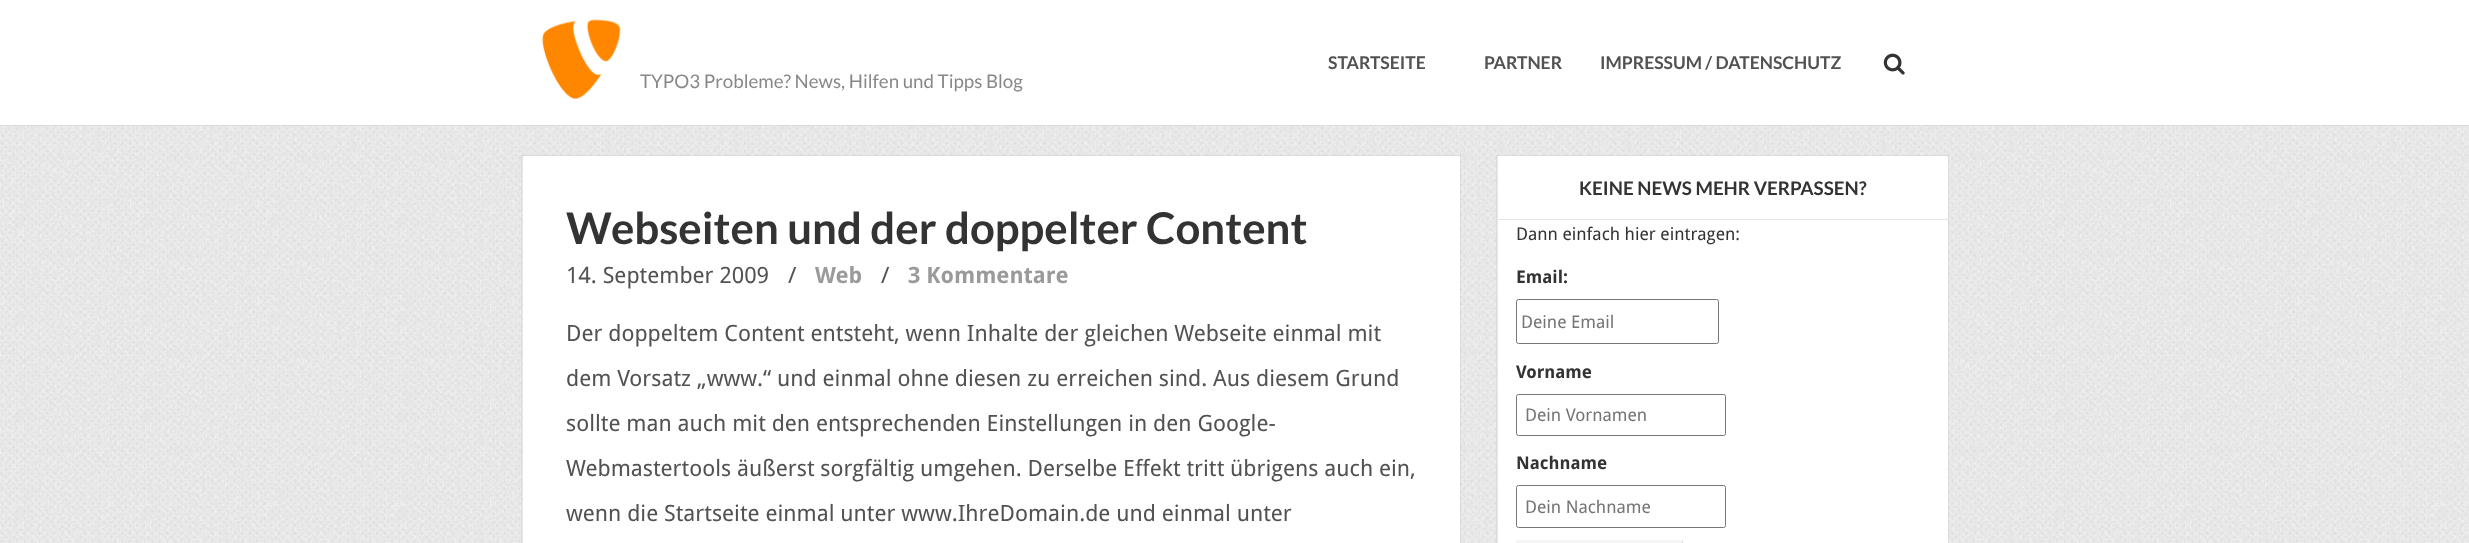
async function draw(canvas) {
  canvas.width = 2469
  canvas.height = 543
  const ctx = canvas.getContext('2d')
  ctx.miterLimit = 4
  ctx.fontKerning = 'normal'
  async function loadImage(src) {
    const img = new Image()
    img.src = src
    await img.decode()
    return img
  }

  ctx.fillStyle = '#fff'
  ctx.fillRect(0, 0, 2469, 543)
  ctx.drawImage(await loadImage('image0.png'), 0, 0, 2469, 543)
  ctx.strokeStyle = '#0000000d'
  ctx.strokeRect(-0.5, -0.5, 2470, 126)
  ctx.beginPath()
  ctx.roundRect(0, 0, 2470, 125, 1)
  ctx.fill()
  ctx.font = 'bold 17.5px Lato'
  ctx.fillStyle = '#525252'
  ctx.fillText('STARTSEITE', 1328, 69)
  ctx.fillText('PARTNER', 1484, 69)
  ctx.fillText('IMPRESSUM / DATENSCHUTZ', 1600, 69)
  ctx.drawImage(await loadImage('image1.png'), 1883, 53, 22, 22)
  ctx.drawImage(await loadImage('image2.png'), 542, 19, 79, 81)
  ctx.font = '18.75px Lato'
  ctx.fillStyle = '#888'
  ctx.fillText('TYPO3 Probleme? News, Hilfen und Tipps Blog', 640, 88)
  ctx.strokeRect(521.5, 155.5, 939, 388)
  ctx.fillStyle = '#fff'
  ctx.beginPath()
  ctx.roundRect(523, 156, 937, 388, 1)
  ctx.fill()
  ctx.font = 'bold 43.75px Lato'
  ctx.fillStyle = '#333'
  ctx.fillText('Webseiten und der doppelter Content', 566, 244)
  ctx.font = '22.5px Droid Sans'
  ctx.fillStyle = '#525252'
  ctx.fillText('14. September 2009', 566, 283)
  ctx.fillText('/', 788, 283)
  ctx.font = 'bold 22.5px Droid Sans'
  ctx.fillStyle = '#9a9a9a'
  ctx.fillText('Web', 815, 283)
  ctx.font = '22.5px Droid Sans'
  ctx.fillStyle = '#525252'
  ctx.fillText('/', 881, 283)
  ctx.font = 'bold 22.5px Droid Sans'
  ctx.fillStyle = '#9a9a9a'
  ctx.fillText('3 Kommentare', 908, 283)
  ctx.font = '22.5px Droid Sans'
  ctx.fillStyle = '#525252'
  ctx.fillText('Der doppeltem Content entsteht, wenn Inhalte der gleichen Webseite einmal mit', 566, 341)
  ctx.fillText('dem Vorsatz „www.“ und einmal ohne diesen zu erreichen sind. Aus diesem Grund', 566, 386)
  ctx.fillText('sollte man auch mit den entsprechenden Einstellungen in den Google-', 566, 431)
  ctx.fillText('Webmastertools äußerst sorgfältig umgehen. Derselbe Effekt tritt übrigens auch ein,', 566, 476)
  ctx.fillText('wenn die Startseite einmal unter www.IhreDomain.de und einmal unter', 566, 521)
  ctx.strokeRect(1496.5, 155.5, 452, 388)
  ctx.fillStyle = '#fff'
  ctx.beginPath()
  ctx.roundRect(1498, 156, 450, 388, 1)
  ctx.fill()
  ctx.fillStyle = '#e6e6e6'
  ctx.beginPath()
  ctx.moveTo(1498, 219)
  ctx.lineTo(1498, 220)
  ctx.lineTo(1948, 220)
  ctx.bezierCurveTo(1948, 213, 1949, 161, 1948, 159)
  ctx.lineTo(1948, 219)
  ctx.closePath()
  ctx.fill()
  ctx.font = 'bold 18.75px Lato'
  ctx.fillStyle = '#333'
  ctx.fillText('KEINE NEWS MEHR VERPASSEN?', 1579, 195)
  ctx.font = '17.5px Droid Sans'
  ctx.fillText('Dann einfach hier eintragen:', 1516, 240)
  ctx.font = 'bold 17.5px Droid Sans'
  ctx.fillText('Email:', 1516, 283)
  ctx.beginPath()
  ctx.roundRect(1516.5, 299.5, 202, 44, 2)
  ctx.strokeStyle = '#767676'
  ctx.stroke()
  ctx.font = '17.5px Droid Sans'
  ctx.fillStyle = '#757575'
  ctx.fillText('Deine Email', 1521, 328)
  ctx.font = 'bold 17.5px Droid Sans'
  ctx.fillStyle = '#333'
  ctx.fillText('Vorname', 1516, 378)
  ctx.beginPath()
  ctx.roundRect(1516.5, 394.5, 209, 41, 2)
  ctx.stroke()
  ctx.font = '17.5px Droid Sans'
  ctx.fillStyle = '#757575'
  ctx.fillText('Dein Vornamen', 1525, 421)
  ctx.font = 'bold 17.5px Droid Sans'
  ctx.fillStyle = '#333'
  ctx.fillText('Nachname', 1516, 469)
  ctx.beginPath()
  ctx.roundRect(1516.5, 485.5, 209, 42, 2)
  ctx.stroke()
  ctx.font = '17.5px Droid Sans'
  ctx.fillStyle = '#757575'
  ctx.fillText('Dein Nachname', 1525, 513)
  ctx.fillStyle = '#f5f5f5'
  ctx.beginPath()
  ctx.roundRect(1516, 540, 167, 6, 2.5)
  ctx.fill()
  ctx.fillStyle = '#dedede'
  ctx.beginPath()
  ctx.moveTo(1516, 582)
  ctx.lineTo(1516, 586)
  ctx.bezierCurveTo(1516, 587, 1517, 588, 1518, 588)
  ctx.lineTo(1680, 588)
  ctx.bezierCurveTo(1682, 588, 1683, 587, 1683, 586)
  ctx.lineTo(1683, 542)
  ctx.bezierCurveTo(1683, 542, 1683, 541, 1682, 540)
  ctx.lineTo(1682, 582)
  ctx.bezierCurveTo(1682, 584, 1681, 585, 1680, 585)
  ctx.lineTo(1519, 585)
  ctx.bezierCurveTo(1517, 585, 1516, 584, 1516, 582)
  ctx.closePath()
  ctx.fill()
}

draw(document.querySelector('canvas'))
